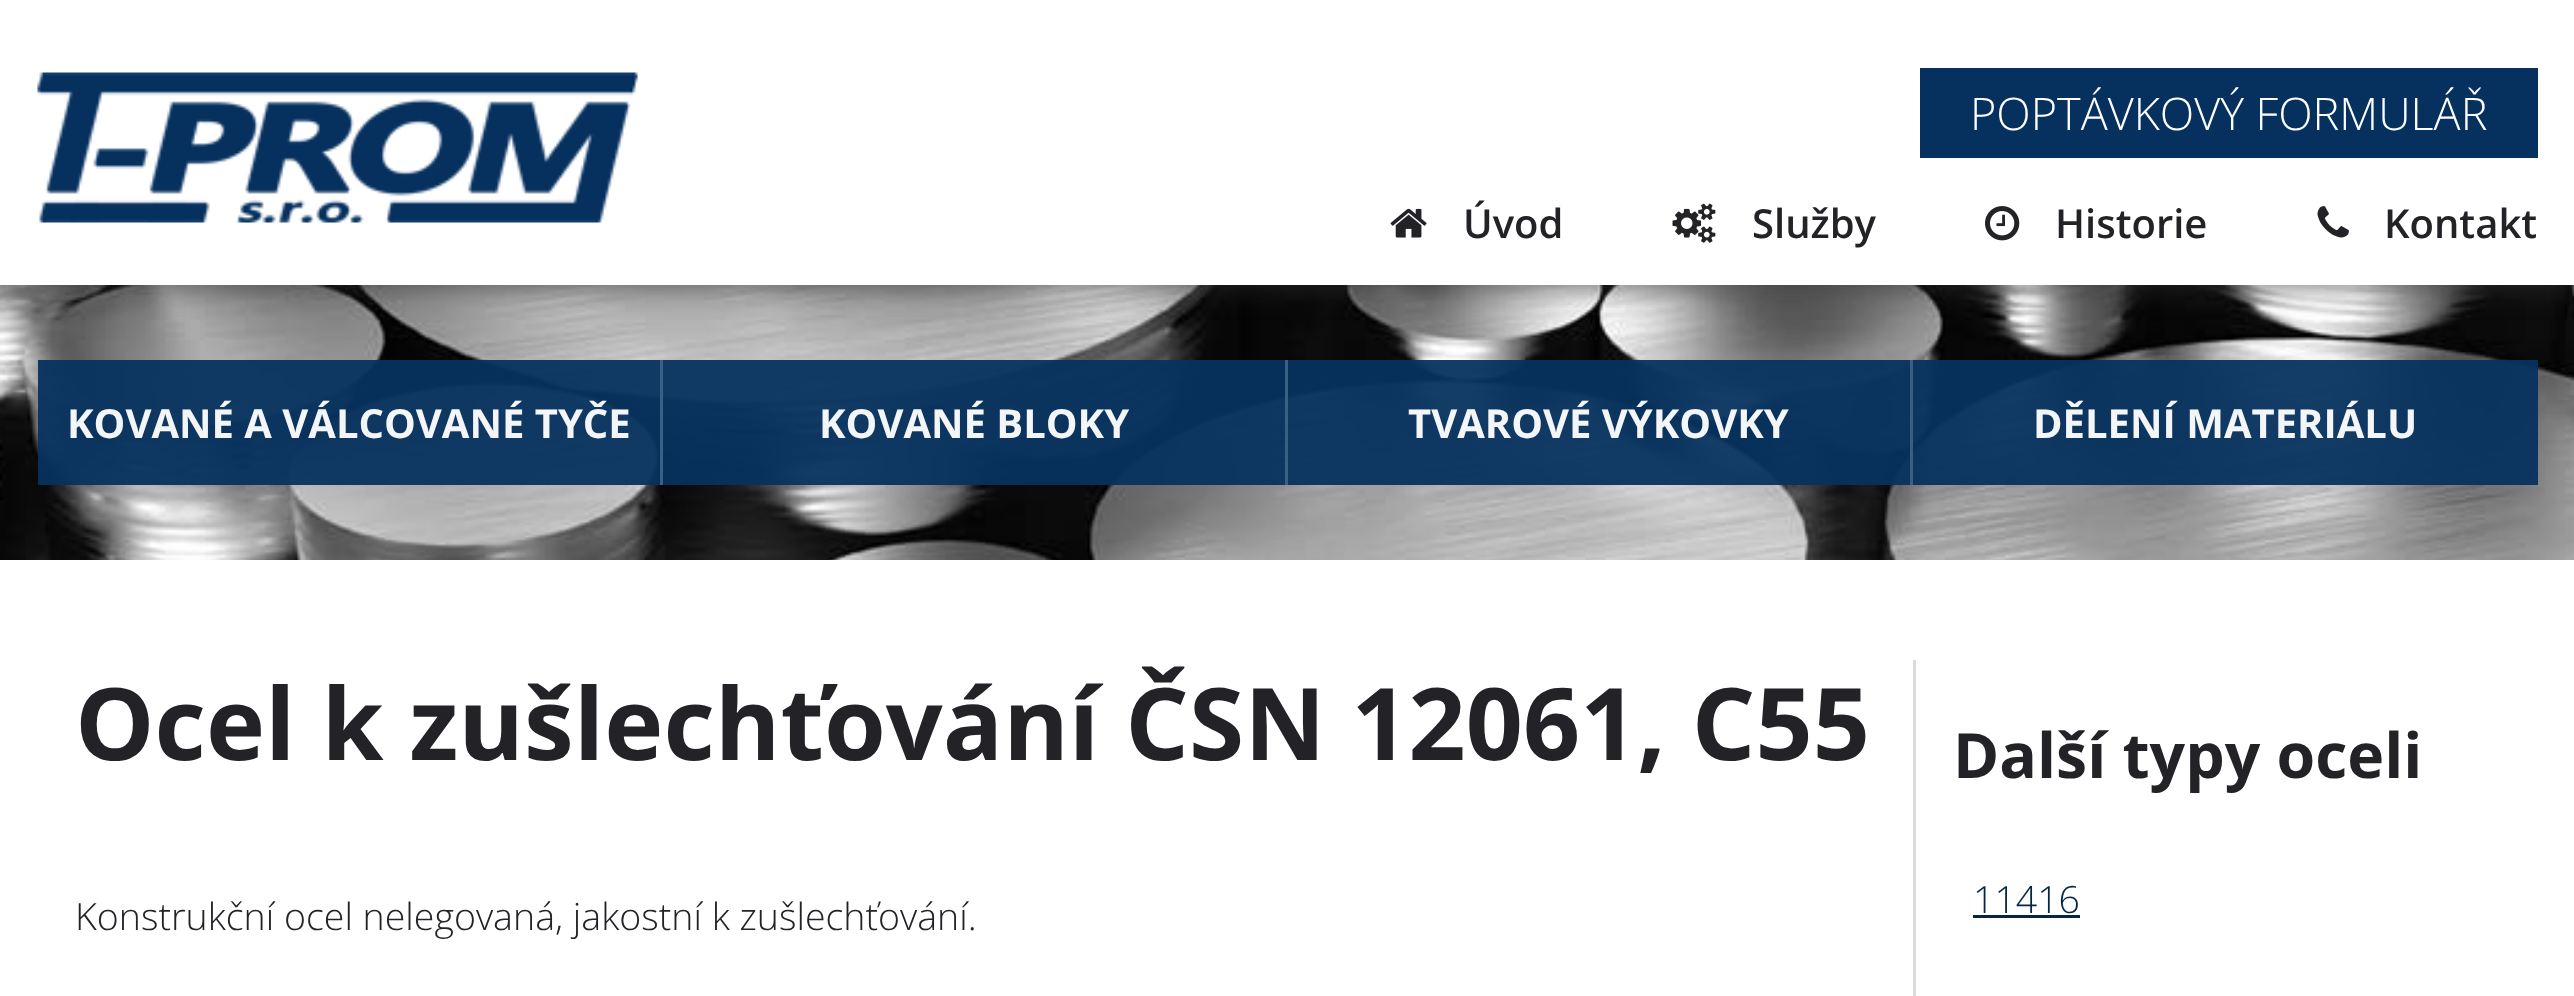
async function draw(canvas) {
  canvas.width = 2574
  canvas.height = 996
  const ctx = canvas.getContext('2d')
  ctx.miterLimit = 4
  ctx.fontKerning = 'normal'
  async function loadImage(src) {
    const img = new Image()
    img.src = src
    await img.decode()
    return img
  }

  ctx.fillStyle = '#fff'
  ctx.fillRect(0, 0, 2574, 996)
  ctx.drawImage(await loadImage('image0.png'), 0, 285, 2574, 275)
  ctx.fillStyle = '#323232ba'
  ctx.filter = 'blur(15px)'
  ctx.beginPath()
  ctx.rect(0, 0, 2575, 285)
  ctx.fill()
  ctx.filter = 'none'
  ctx.fillStyle = '#fff'
  ctx.fillRect(0, 0, 2574, 285)
  ctx.drawImage(await loadImage('image1.png'), 37, 72, 601, 151)
  ctx.fillStyle = '#06315f'
  ctx.fillRect(1920, 68, 618, 90)
  ctx.font = '300 45px Open Sans'
  ctx.fillStyle = '#fff'
  ctx.fillText('POPTÁVKOVÝ FORMULÁŘ', 1970, 130)
  ctx.drawImage(await loadImage('image2.png'), 1390, 208, 37, 30)
  ctx.font = '600 40px Open Sans'
  ctx.fillStyle = '#232227'
  ctx.fillText('Úvod', 1463, 238)
  ctx.drawImage(await loadImage('image3.png'), 1672, 203, 44, 40)
  ctx.fillText('Služby', 1752, 238)
  ctx.drawImage(await loadImage('image4.png'), 1985, 206, 35, 35)
  ctx.fillText('Historie', 2055, 238)
  ctx.drawImage(await loadImage('image5.png'), 2317, 206, 32, 32)
  ctx.fillText('Kontakt', 2384, 238)
  ctx.fillStyle = '#06315ff2'
  ctx.fillRect(38, 360, 2500, 125)
  ctx.fillStyle = '#3e6285f2'
  ctx.fillRect(660, 360, 3, 125)
  ctx.font = 'bold 40px Open Sans'
  ctx.fillStyle = '#f3f5f7'
  ctx.fillText('KOVANÉ A VÁLCOVANÉ TYČE', 67, 438)
  ctx.fillStyle = '#3e6285f2'
  ctx.fillRect(1285, 360, 3, 125)
  ctx.fillStyle = '#f3f5f7'
  ctx.fillText('KOVANÉ BLOKY', 819, 438)
  ctx.fillStyle = '#3e6285f2'
  ctx.fillRect(1910, 360, 3, 125)
  ctx.fillStyle = '#f3f5f7'
  ctx.fillText('TVAROVÉ VÝKOVKY', 1408, 438)
  ctx.fillText('DĚLENÍ MATERIÁLU', 2033, 438)
  ctx.font = 'bold 100px Open Sans'
  ctx.fillStyle = '#232227'
  ctx.fillText('Ocel k zušlechťování ČSN 12061, C55', 75, 760)
  ctx.font = '300 37.5px Open Sans'
  ctx.fillText('Konstrukční ocel nelegovaná, jakostní k zušlechťování.', 75, 930)
  ctx.fillStyle = '#dbdbdb'
  ctx.fillRect(1913, 660, 3, 336)
  ctx.font = 'bold 62.5px Open Sans'
  ctx.fillStyle = '#232227'
  ctx.fillText('Další typy oceli', 1953, 778)
  ctx.font = '300 37.5px Open Sans'
  ctx.fillStyle = '#052547'
  ctx.fillText('11416', 1973, 913)
  ctx.fillRect(1973, 915, 107, 3)
}

draw(document.querySelector('canvas'))
